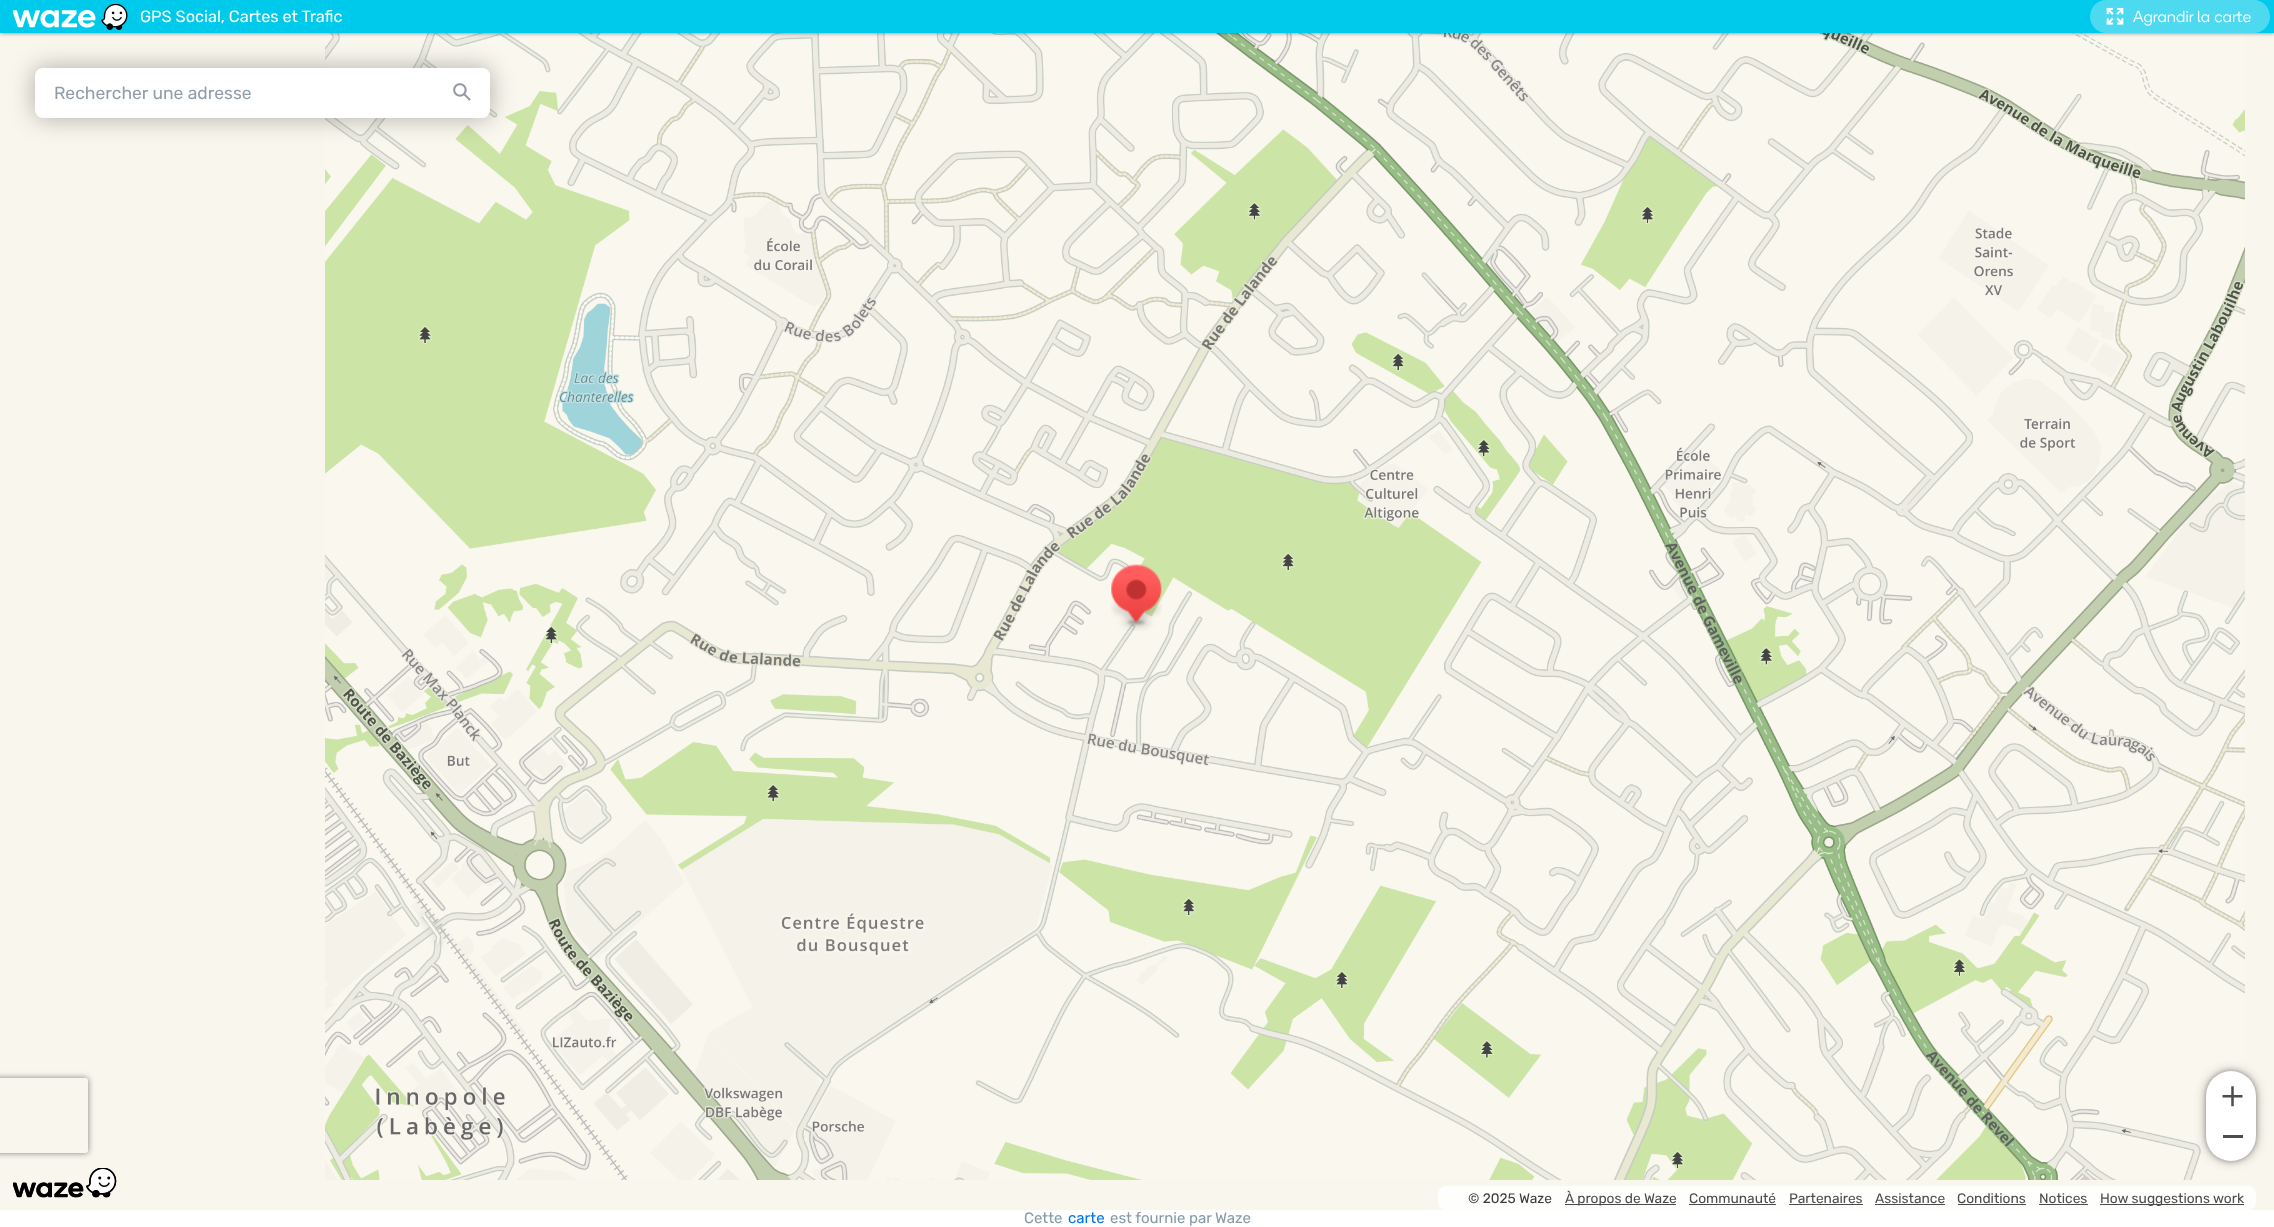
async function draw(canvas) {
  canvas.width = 2274
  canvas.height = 1227
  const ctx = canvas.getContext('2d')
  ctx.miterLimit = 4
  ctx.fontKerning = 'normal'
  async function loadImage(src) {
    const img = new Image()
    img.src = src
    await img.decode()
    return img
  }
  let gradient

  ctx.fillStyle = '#fff'
  ctx.fillRect(0, 0, 2274, 1227)
  ctx.fillStyle = '#f9f6ed'
  ctx.fillRect(0, 33, 2274, 1177)
  ctx.drawImage(await loadImage('image2.png'), 325, 33, 320, 187)
  ctx.drawImage(await loadImage('image3.png'), 645, 33, 320, 187)
  ctx.drawImage(await loadImage('image4.png'), 965, 33, 320, 187)
  ctx.drawImage(await loadImage('image5.png'), 1285, 33, 320, 187)
  ctx.drawImage(await loadImage('image6.png'), 1605, 33, 320, 187)
  ctx.drawImage(await loadImage('image7.png'), 1925, 33, 320, 187)
  ctx.fillStyle = '#00000080'
  ctx.filter = 'blur(2px)'
  ctx.beginPath()
  ctx.rect(0, 0, 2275, 33)
  ctx.fill()
  ctx.filter = 'none'
  ctx.fillStyle = '#0000004d'
  ctx.filter = 'blur(12.5px)'
  ctx.beginPath()
  ctx.roundRect(35, 68, 455, 50, 8)
  ctx.fill()
  ctx.filter = 'none'
  ctx.fillStyle = '#00caeb'
  ctx.fillRect(0, 0, 2274, 33)
  ctx.drawImage(await loadImage('image0.png'), 13, 4, 115, 26)
  ctx.font = '16.25px Rubik'
  ctx.fillStyle = '#fff'
  ctx.fillText('GPS Social, Cartes et Trafic', 140, 22)
  ctx.fillStyle = '#4ddaf1'
  ctx.beginPath()
  ctx.roundRect(2090, 0, 180, 33, 16.5)
  ctx.fill()
  ctx.drawImage(await loadImage('image1.png'), 2106, 7, 18, 18)
  ctx.font = '300 16.25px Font'
  ctx.fillStyle = '#fff'
  ctx.fillText('Agrandir la carte', 2133, 22)
  ctx.save()
  ctx.beginPath()
  ctx.moveTo(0, 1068)
  ctx.lineTo(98, 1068)
  ctx.lineTo(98, 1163)
  ctx.lineTo(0, 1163)
  ctx.closePath()
  ctx.moveTo(-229.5, 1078)
  ctx.lineTo(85.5, 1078)
  ctx.bezierCurveTo(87, 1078, 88, 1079, 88, 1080.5)
  ctx.lineTo(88, 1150.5)
  ctx.bezierCurveTo(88, 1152, 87, 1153, 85.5, 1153)
  ctx.lineTo(-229.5, 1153)
  ctx.bezierCurveTo(-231, 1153, -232, 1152, -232, 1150.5)
  ctx.lineTo(-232, 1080.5)
  ctx.bezierCurveTo(-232, 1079, -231, 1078, -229.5, 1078)
  ctx.closePath()
  ctx.clip('evenodd')
  ctx.fillStyle = '#808080'
  ctx.filter = 'blur(3px)'
  ctx.beginPath()
  ctx.roundRect(-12, 1078, 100, 75, 2.5)
  ctx.fill()
  ctx.filter = 'none'
  ctx.restore()
  ctx.drawImage(await loadImage('image8.png'), 325, 220, 320, 320)
  ctx.drawImage(await loadImage('image9.png'), 645, 220, 320, 320)
  ctx.drawImage(await loadImage('image10.png'), 965, 220, 320, 320)
  ctx.drawImage(await loadImage('image11.png'), 1285, 220, 320, 320)
  ctx.drawImage(await loadImage('image12.png'), 1605, 220, 320, 320)
  ctx.drawImage(await loadImage('image13.png'), 1925, 220, 320, 320)
  ctx.drawImage(await loadImage('image14.png'), 325, 540, 320, 320)
  ctx.drawImage(await loadImage('image15.png'), 645, 540, 320, 320)
  ctx.drawImage(await loadImage('image16.png'), 965, 540, 320, 320)
  ctx.drawImage(await loadImage('image17.png'), 1285, 540, 320, 320)
  ctx.drawImage(await loadImage('image18.png'), 1605, 540, 320, 320)
  ctx.drawImage(await loadImage('image19.png'), 1925, 540, 320, 320)
  ctx.drawImage(await loadImage('image20.png'), 325, 860, 320, 320)
  ctx.drawImage(await loadImage('image21.png'), 645, 860, 320, 320)
  ctx.drawImage(await loadImage('image22.png'), 965, 860, 320, 320)
  ctx.drawImage(await loadImage('image23.png'), 1285, 860, 320, 320)
  ctx.drawImage(await loadImage('image24.png'), 1605, 860, 320, 320)
  ctx.drawImage(await loadImage('image25.png'), 1925, 860, 320, 320)
  ctx.drawImage(await loadImage('image26.png'), 1111, 564, 51, 67)
  ctx.beginPath()
  ctx.roundRect(35, 68, 455, 50, 8)
  ctx.fill()
  ctx.font = '17.5px Rubik'
  ctx.fillStyle = '#919da9'
  ctx.fillText('Rechercher une adresse', 54, 99)
  gradient = ctx.createLinearGradient(428, 91, 490, 91)
  gradient.addColorStop(0, '#ffffff00')
  gradient.addColorStop(0.25, '#fff')
  gradient.addColorStop(1, '#fff')
  ctx.fillStyle = gradient
  ctx.beginPath()
  ctx.roundRect(428, 68, 62, 47, 8)
  ctx.fill()
  ctx.drawImage(await loadImage('image27.png'), 453, 83, 18, 18)
  ctx.drawImage(await loadImage('image28.png'), 13, 1168, 104, 30)
  ctx.fillStyle = '#0000004d'
  ctx.filter = 'blur(6px)'
  ctx.beginPath()
  ctx.roundRect(2206, 1071, 50, 90, 25)
  ctx.fill()
  ctx.filter = 'none'
  ctx.filter = 'blur(2.5px)'
  ctx.beginPath()
  ctx.roundRect(2206, 1071, 50, 90, 25)
  ctx.fill()
  ctx.filter = 'none'
  ctx.fillStyle = '#fff'
  ctx.beginPath()
  ctx.roundRect(2206, 1071, 50, 45, [25, 25, 0, 0])
  ctx.fill()
  ctx.drawImage(await loadImage('image29.png'), 2222, 1086, 21, 21)
  ctx.beginPath()
  ctx.roundRect(2206, 1116, 50, 45, [0, 0, 25, 25])
  ctx.fill()
  ctx.fillStyle = '#4c4c4c'
  ctx.fillRect(2223, 1135, 20, 3)
  ctx.fillStyle = '#fefefd'
  ctx.beginPath()
  ctx.roundRect(1438, 1186, 818, 24, 8)
  ctx.fill()
  ctx.font = '13.75px Rubik'
  ctx.fillStyle = '#3d3d3d'
  ctx.fillText('© 2025 Waze', 1468, 1203)
  ctx.fillStyle = '#4c4c4c'
  ctx.fillRect(1565, 1204, 111, 1)
  ctx.fillText('À propos de Waze', 1565, 1203)
  ctx.fillText('Communauté', 1689, 1203)
  ctx.fillRect(1689, 1204, 87, 1)
  ctx.fillText('Partenaires', 1789, 1203)
  ctx.fillRect(1789, 1204, 74, 1)
  ctx.fillText('Assistance', 1875, 1203)
  ctx.fillRect(1875, 1204, 70, 1)
  ctx.fillText('Conditions', 1957, 1203)
  ctx.fillRect(1958, 1204, 68, 1)
  ctx.fillText('Notices', 2039, 1203)
  ctx.fillRect(2039, 1204, 49, 1)
  ctx.fillRect(2100, 1204, 144, 1)
  ctx.fillText('How suggestions work', 2100, 1203)
  ctx.font = '15px Rubik'
  ctx.fillStyle = '#859ba6'
  ctx.fillText('Cette', 1024, 1223)
  ctx.fillStyle = '#0075e3'
  ctx.fillText('carte', 1068, 1223)
  ctx.fillStyle = '#859ba6'
  ctx.fillText('est fournie par Waze', 1110, 1223)
}

draw(document.querySelector('canvas'))
